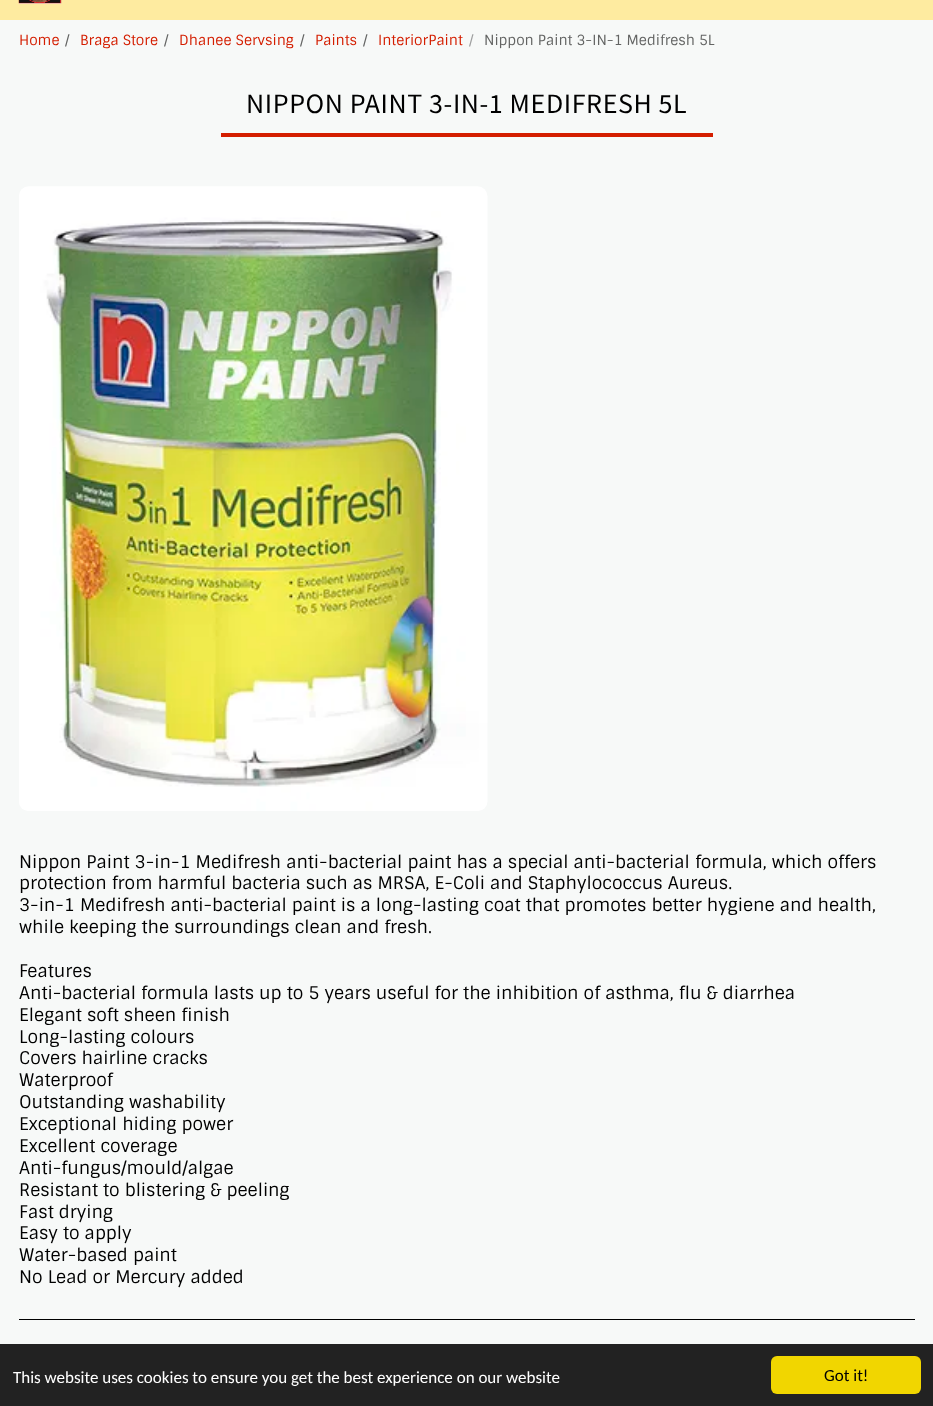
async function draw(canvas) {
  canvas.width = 933
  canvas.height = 1406
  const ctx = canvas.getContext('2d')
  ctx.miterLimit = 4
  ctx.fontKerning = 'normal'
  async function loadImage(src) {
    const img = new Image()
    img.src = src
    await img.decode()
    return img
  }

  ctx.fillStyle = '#f7f9f8'
  ctx.fillRect(0, 0, 933, 1406)
  ctx.fillStyle = '#feeba0'
  ctx.fillRect(0, 0, 933, 20)
  ctx.drawImage(await loadImage('image0.png'), 18, 0, 44, 4)
  ctx.font = '14px Sintony'
  ctx.fillStyle = '#d41e00'
  ctx.fillText('Home', 19, 45)
  ctx.fillStyle = '#636463'
  ctx.fillText('/', 65, 45)
  ctx.fillStyle = '#d41e00'
  ctx.fillText('Braga Store', 80, 45)
  ctx.fillStyle = '#636463'
  ctx.fillText('/', 164, 45)
  ctx.fillStyle = '#d41e00'
  ctx.fillText('Dhanee Servsing', 179, 45)
  ctx.fillStyle = '#636463'
  ctx.fillText('/', 300, 45)
  ctx.fillStyle = '#d41e00'
  ctx.fillText('Paints', 315, 45)
  ctx.fillStyle = '#636463'
  ctx.fillText('/', 363, 45)
  ctx.fillStyle = '#d41e00'
  ctx.fillText('InteriorPaint', 378, 45)
  ctx.fillStyle = '#9e9f9f'
  ctx.fillText('/', 469, 45)
  ctx.fillStyle = '#636463'
  ctx.fillText('Nippon Paint 3-IN-1 Medifresh 5L', 484, 45)
  ctx.fillStyle = '#d41e00'
  ctx.fillRect(221, 133, 492, 4)
  ctx.letterSpacing = '0.6px'
  ctx.font = '28px Source Sans Pro'
  ctx.fillStyle = '#000'
  ctx.fillText('NIPPON PAINT 3-IN-1 MEDIFRESH 5L', 246, 113)
  ctx.drawImage(await loadImage('image1.png'), 19, 186, 469, 625)
  ctx.letterSpacing = '0px'
  ctx.font = '17.5px Sintony'
  ctx.fillText('Nippon Paint 3-in-1 Medifresh anti-bacterial paint has a special anti-bacterial formula, which offers', 19, 868)
  ctx.fillText('protection from harmful bacteria such as MRSA, E-Coli and Staphylococcus Aureus.', 19, 889)
  ctx.fillText('3-in-1 Medifresh anti-bacterial paint is a long-lasting coat that promotes better hygiene and health,', 19, 911)
  ctx.fillText('while keeping the surroundings clean and fresh.', 19, 933)
  ctx.fillText('Features', 19, 977)
  ctx.fillText('Anti-bacterial formula lasts up to 5 years useful for the inhibition of asthma, flu & diarrhea', 19, 999)
  ctx.fillText('Elegant soft sheen finish', 19, 1021)
  ctx.fillText('Long-lasting colours', 19, 1043)
  ctx.fillText('Covers hairline cracks', 19, 1064)
  ctx.fillText('Waterproof', 19, 1086)
  ctx.fillText('Outstanding washability', 19, 1108)
  ctx.fillText('Exceptional hiding power', 19, 1130)
  ctx.fillText('Excellent coverage', 19, 1152)
  ctx.fillText('Anti-fungus/mould/algae', 19, 1174)
  ctx.fillText('Resistant to blistering & peeling', 19, 1196)
  ctx.fillText('Fast drying', 19, 1218)
  ctx.fillText('Easy to apply', 19, 1239)
  ctx.fillText('Water-based paint', 19, 1261)
  ctx.fillText('No Lead or Mercury added', 19, 1283)
  ctx.fillRect(19, 1319, 896, 1)
  ctx.fillStyle = '#222'
  ctx.fillRect(0, 1344, 933, 62)
  ctx.font = '17px Carlito'
  ctx.fillStyle = '#fff'
  ctx.fillText('This website uses cookies to ensure you get the best experience on our website', 13, 1383)
  ctx.fillStyle = '#f1d600'
  ctx.beginPath()
  ctx.roundRect(771, 1356, 150, 38, 6)
  ctx.fill()
  ctx.fillStyle = '#000'
  ctx.fillText('Got it!', 824, 1381)
}

draw(document.querySelector('canvas'))
